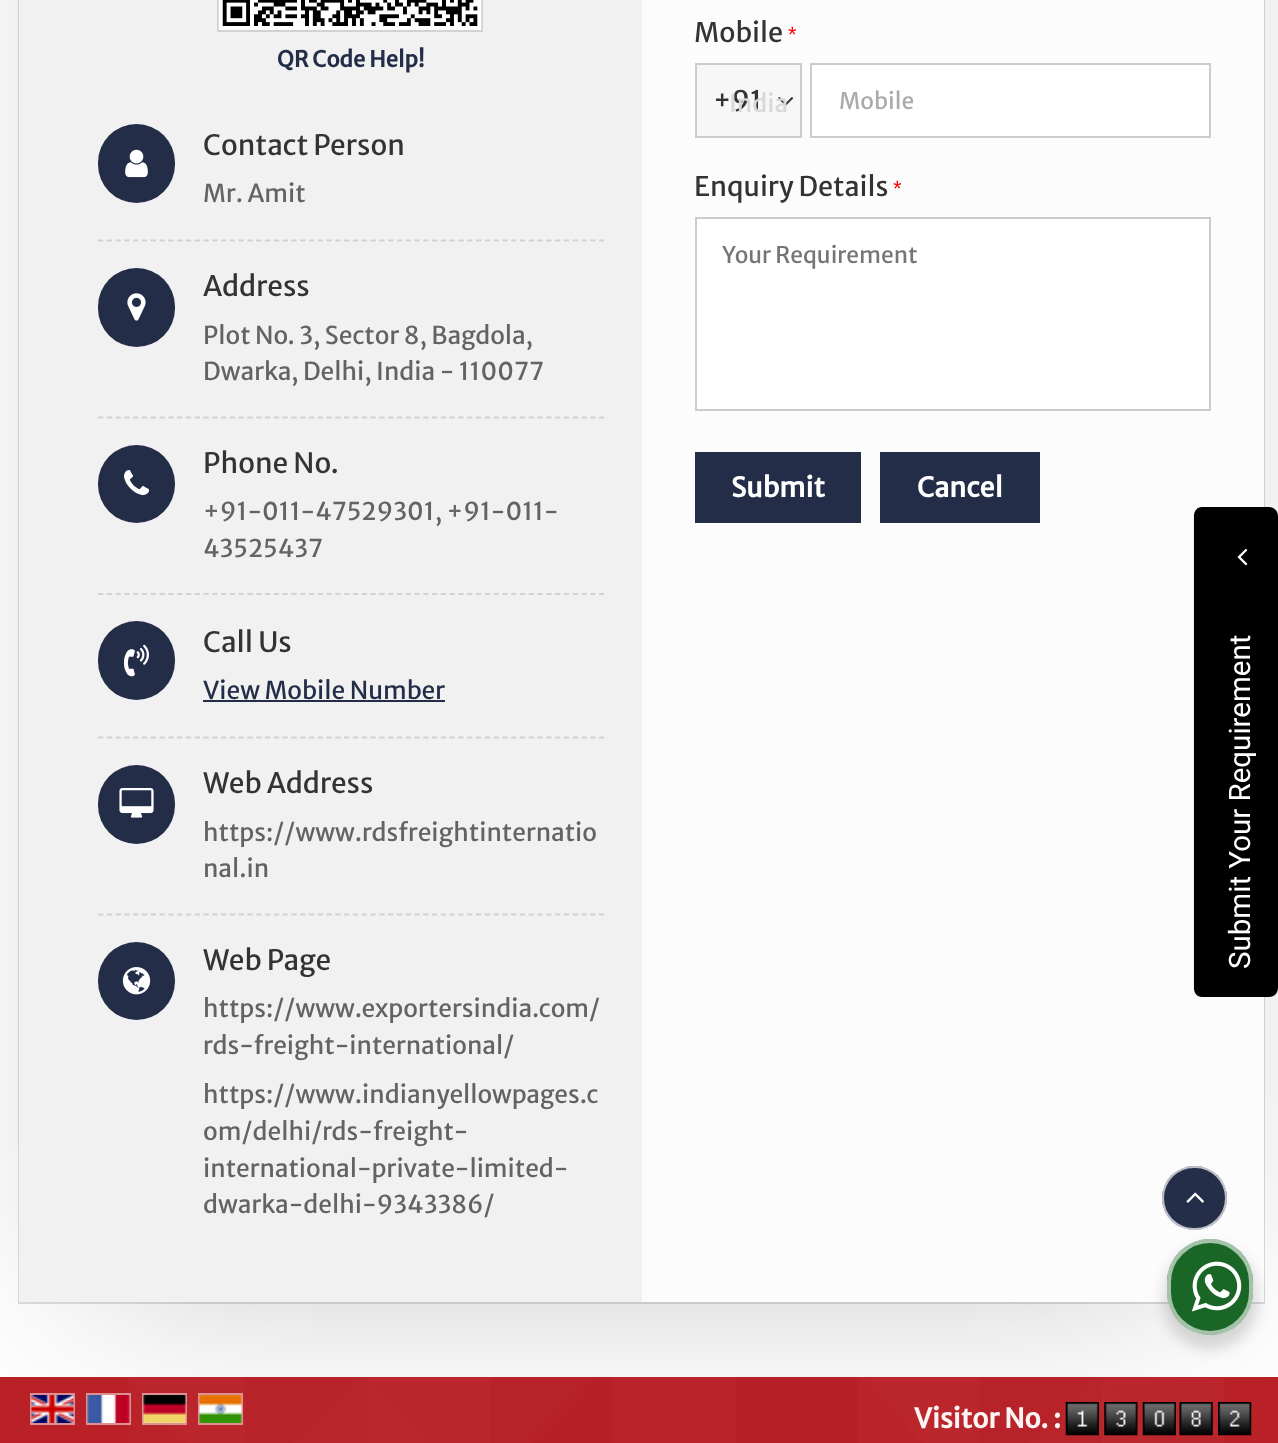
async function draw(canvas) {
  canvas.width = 1278
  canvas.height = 1443
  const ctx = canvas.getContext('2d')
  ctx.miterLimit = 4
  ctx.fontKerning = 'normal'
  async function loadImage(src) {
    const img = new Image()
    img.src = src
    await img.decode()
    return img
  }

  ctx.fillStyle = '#fff'
  ctx.fillRect(0, 0, 1278, 1443)
  ctx.fillStyle = '#0000003d'
  ctx.filter = 'blur(105px)'
  ctx.beginPath()
  ctx.rect(88, -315, 1107, 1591)
  ctx.fill()
  ctx.filter = 'none'
  ctx.strokeStyle = '#00000021'
  ctx.lineWidth = 2
  ctx.strokeRect(19, -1, 1245, 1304)
  ctx.fillStyle = '#f1f1f1'
  ctx.fillRect(19, 0, 623, 1302)
  ctx.strokeStyle = '#d2d2d2'
  ctx.strokeRect(218, -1, 264, 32)
  ctx.drawImage(await loadImage('image0.png'), 218, 0, 264, 30)
  ctx.font = 'bold 22px Merriweather Sans'
  ctx.fillStyle = '#232d48'
  ctx.fillText('QR Code Help!', 277, 67)
  ctx.beginPath()
  ctx.roundRect(98, 124, 77, 79, 38.5)
  ctx.fill()
  ctx.drawImage(await loadImage('image1.png'), 125, 149, 23, 29)
  ctx.font = '28px Merriweather Sans'
  ctx.fillStyle = '#333'
  ctx.fillText('Contact Person', 203, 155)
  ctx.font = '24.5px Merriweather Sans'
  ctx.fillStyle = '#636363'
  ctx.fillText('Mr. Amit', 203, 202)
  ctx.beginPath()
  ctx.moveTo(98, 240.5)
  ctx.lineTo(604, 240.5)
  ctx.lineWidth = 1.8
  ctx.setLineDash([5.25, 3.54])
  ctx.stroke()
  ctx.fillStyle = '#232d48'
  ctx.beginPath()
  ctx.roundRect(98, 268, 77, 79, 38.5)
  ctx.fill()
  ctx.drawImage(await loadImage('image2.png'), 127, 293, 19, 28)
  ctx.font = '28px Merriweather Sans'
  ctx.fillStyle = '#333'
  ctx.fillText('Address', 203, 296)
  ctx.font = '24.5px Merriweather Sans'
  ctx.fillStyle = '#636363'
  ctx.fillText('Plot No. 3, Sector 8, Bagdola,', 203, 344)
  ctx.fillText('Dwarka, Delhi, India - 110077', 203, 380)
  ctx.beginPath()
  ctx.moveTo(98, 417.5)
  ctx.lineTo(604, 417.5)
  ctx.stroke()
  ctx.fillStyle = '#232d48'
  ctx.beginPath()
  ctx.roundRect(98, 445, 77, 78, 38.5)
  ctx.fill()
  ctx.drawImage(await loadImage('image3.png'), 124, 470, 25, 26)
  ctx.font = '28px Merriweather Sans'
  ctx.fillStyle = '#333'
  ctx.fillText('Phone No.', 203, 473)
  ctx.font = '24.5px Merriweather Sans'
  ctx.fillStyle = '#636363'
  ctx.fillText('+91-011-47529301, +91-011-', 203, 520)
  ctx.fillText('43525437', 203, 557)
  ctx.beginPath()
  ctx.moveTo(98, 594)
  ctx.lineTo(604, 594)
  ctx.stroke()
  ctx.fillStyle = '#232d48'
  ctx.beginPath()
  ctx.roundRect(98, 621, 77, 79, 38.5)
  ctx.fill()
  ctx.drawImage(await loadImage('image4.png'), 124, 644, 25, 33)
  ctx.font = '28px Merriweather Sans'
  ctx.fillStyle = '#333'
  ctx.fillText('Call Us', 203, 652)
  ctx.font = '24.5px Merriweather Sans'
  ctx.fillStyle = '#232d48'
  ctx.fillText('View Mobile Number', 203, 699)
  ctx.fillRect(203, 700, 242, 2)
  ctx.beginPath()
  ctx.moveTo(98, 737.5)
  ctx.lineTo(604, 737.5)
  ctx.stroke()
  ctx.beginPath()
  ctx.roundRect(98, 765, 77, 79, 38.5)
  ctx.fill()
  ctx.drawImage(await loadImage('image5.png'), 119, 788, 35, 30)
  ctx.font = '28px Merriweather Sans'
  ctx.fillStyle = '#333'
  ctx.fillText('Web Address', 203, 793)
  ctx.font = '24.5px Merriweather Sans'
  ctx.fillStyle = '#636363'
  ctx.fillText('https://www.rdsfreightinternatio', 203, 841)
  ctx.fillText('nal.in', 203, 877)
  ctx.beginPath()
  ctx.moveTo(98, 914.5)
  ctx.lineTo(604, 914.5)
  ctx.stroke()
  ctx.fillStyle = '#232d48'
  ctx.beginPath()
  ctx.roundRect(98, 942, 77, 78, 38.5)
  ctx.fill()
  ctx.drawImage(await loadImage('image6.png'), 122, 967, 29, 28)
  ctx.font = '28px Merriweather Sans'
  ctx.fillStyle = '#333'
  ctx.fillText('Web Page', 203, 970)
  ctx.font = '24.5px Merriweather Sans'
  ctx.fillStyle = '#636363'
  ctx.fillText('https://www.exportersindia.com/', 203, 1017)
  ctx.fillText('rds-freight-international/', 203, 1054)
  ctx.fillText('https://www.indianyellowpages.c', 203, 1103)
  ctx.fillText('om/delhi/rds-freight-', 203, 1140)
  ctx.fillText('international-private-limited-', 203, 1177)
  ctx.fillText('dwarka-delhi-9343386/', 203, 1213)
  ctx.fillStyle = '#fcfcfc'
  ctx.fillRect(642, 0, 622, 1302)
  ctx.font = '27px Merriweather Sans'
  ctx.fillStyle = '#333'
  ctx.fillText('Mobile', 694, 42)
  ctx.font = '22px Liberation Sans'
  ctx.fillStyle = '#f00'
  ctx.fillText('*', 788, 42)
  ctx.fillStyle = '#f7f7f7'
  ctx.beginPath()
  ctx.rect(696, 64, 105, 73)
  ctx.fill()
  ctx.strokeStyle = '#ccc'
  ctx.lineWidth = 2
  ctx.setLineDash([])
  ctx.stroke()
  ctx.font = '27px Merriweather Sans'
  ctx.fillStyle = '#333'
  ctx.fillText('+91', 713, 110)
  ctx.drawImage(await loadImage('image7.png'), 778, 97, 16, 9)
  ctx.font = '24.5px Merriweather Sans'
  ctx.fillStyle = '#d8d8d8'
  ctx.fillText('India', 729, 112)
  ctx.fillStyle = '#fff'
  ctx.beginPath()
  ctx.rect(811, 64, 399, 73)
  ctx.fill()
  ctx.stroke()
  ctx.font = '22.75px Merriweather Sans'
  ctx.fillStyle = '#aaa'
  ctx.fillText('Mobile', 839, 109)
  ctx.font = '27px Merriweather Sans'
  ctx.fillStyle = '#333'
  ctx.fillText('Enquiry Details', 694, 196)
  ctx.font = '22px Liberation Sans'
  ctx.fillStyle = '#f00'
  ctx.fillText('*', 893, 196)
  ctx.fillStyle = '#fff'
  ctx.beginPath()
  ctx.rect(696, 218, 514, 192)
  ctx.fill()
  ctx.stroke()
  ctx.font = '22.75px Merriweather Sans'
  ctx.fillStyle = '#757575'
  ctx.fillText('Your Requirement', 722, 263)
  ctx.fillStyle = '#232d48'
  ctx.fillRect(695, 452, 166, 71)
  ctx.font = 'bold 27px Merriweather Sans'
  ctx.fillStyle = '#fff'
  ctx.fillText('Submit', 731, 497)
  ctx.fillStyle = '#232d48'
  ctx.fillRect(880, 452, 160, 71)
  ctx.fillStyle = '#fff'
  ctx.fillText('Cancel', 917, 497)
  ctx.fillStyle = '#b92127'
  ctx.fillRect(0, 1377, 1278, 66)
  ctx.drawImage(await loadImage('image8.png'), 128, 1378, 1097, 65)
  ctx.strokeStyle = '#dc9093'
  ctx.strokeRect(31, 1394, 43, 30)
  ctx.strokeStyle = '#ffffff80'
  ctx.strokeRect(87, 1394, 43, 30)
  ctx.strokeRect(143, 1394, 43, 30)
  ctx.strokeStyle = '#dd9396'
  ctx.strokeRect(199, 1394, 43, 30)
  ctx.drawImage(await loadImage('image9.png'), 31, 1395, 43, 28)
  ctx.drawImage(await loadImage('image10.png'), 87, 1395, 43, 28)
  ctx.drawImage(await loadImage('image11.png'), 143, 1395, 43, 28)
  ctx.drawImage(await loadImage('image12.png'), 199, 1395, 43, 28)
  ctx.fillStyle = '#fcf4f4'
  ctx.fillText('Visitor No. :', 914, 1428)
  ctx.drawImage(await loadImage('image13.png'), 1065, 1402, 34, 34)
  ctx.drawImage(await loadImage('image14.png'), 1104, 1402, 34, 34)
  ctx.drawImage(await loadImage('image15.png'), 1142, 1402, 34, 34)
  ctx.drawImage(await loadImage('image16.png'), 1179, 1402, 34, 34)
  ctx.drawImage(await loadImage('image17.png'), 1218, 1402, 34, 34)
  ctx.fillStyle = '#000'
  ctx.beginPath()
  ctx.moveTo(1194, 988)
  ctx.lineTo(1194, 516)
  ctx.bezierCurveTo(1194, 511, 1197, 507, 1202, 507)
  ctx.lineTo(1269, 507)
  ctx.bezierCurveTo(1274, 507, 1278, 511, 1278, 516)
  ctx.lineTo(1278, 988)
  ctx.bezierCurveTo(1278, 993, 1274, 997, 1269, 997)
  ctx.lineTo(1202, 997)
  ctx.bezierCurveTo(1197, 997, 1194, 993, 1194, 988)
  ctx.closePath()
  ctx.fill()
  ctx.beginPath()
  ctx.moveTo(1194.5, 988.5)
  ctx.lineTo(1194.5, 516)
  ctx.bezierCurveTo(1194.5, 511.5, 1198, 508, 1202, 508)
  ctx.lineTo(1269, 508)
  ctx.bezierCurveTo(1273, 508, 1276.5, 511.5, 1276.5, 516)
  ctx.lineTo(1276.5, 988.5)
  ctx.bezierCurveTo(1276.5, 992.5, 1273, 996, 1269, 996)
  ctx.lineTo(1202, 996)
  ctx.bezierCurveTo(1198, 996, 1194.5, 992.5, 1194.5, 988.5)
  ctx.closePath()
  ctx.strokeStyle = '#00000021'
  ctx.lineWidth = 1.8
  ctx.stroke()
  ctx.drawImage(await loadImage('image18.png'), 1237, 548, 11, 18)
  ctx.font = '29.5px Roboto'
  ctx.fillStyle = '#fff'
  ctx.save()
  ctx.translate(1250, 969)
  ctx.rotate(-90 * Math.PI / 180)
  ctx.fillText('Submit Your Requirement', 0, 0)
  ctx.restore()
  ctx.fillStyle = '#242e48'
  ctx.beginPath()
  ctx.roundRect(1162, 1166, 65, 64, 32)
  ctx.fill()
  ctx.beginPath()
  ctx.roundRect(1163, 1167, 63, 62, 31)
  ctx.strokeStyle = '#ffffffb3'
  ctx.lineWidth = 2
  ctx.stroke()
  ctx.drawImage(await loadImage('image19.png'), 1186, 1192, 18, 11)
  ctx.fillStyle = '#00000024'
  ctx.filter = 'blur(7px)'
  ctx.beginPath()
  ctx.roundRect(1164, 1246, 93, 103, 46.5)
  ctx.fill()
  ctx.filter = 'none'
  ctx.fillStyle = '#196626'
  ctx.beginPath()
  ctx.roundRect(1167, 1239, 86, 96, 43)
  ctx.fill()
  ctx.beginPath()
  ctx.roundRect(1169, 1241, 82, 92, 41)
  ctx.strokeStyle = '#ffffff99'
  ctx.lineWidth = 4
  ctx.stroke()
  ctx.drawImage(await loadImage('image20.png'), 1191, 1261, 51, 51)
}

draw(document.querySelector('canvas'))
